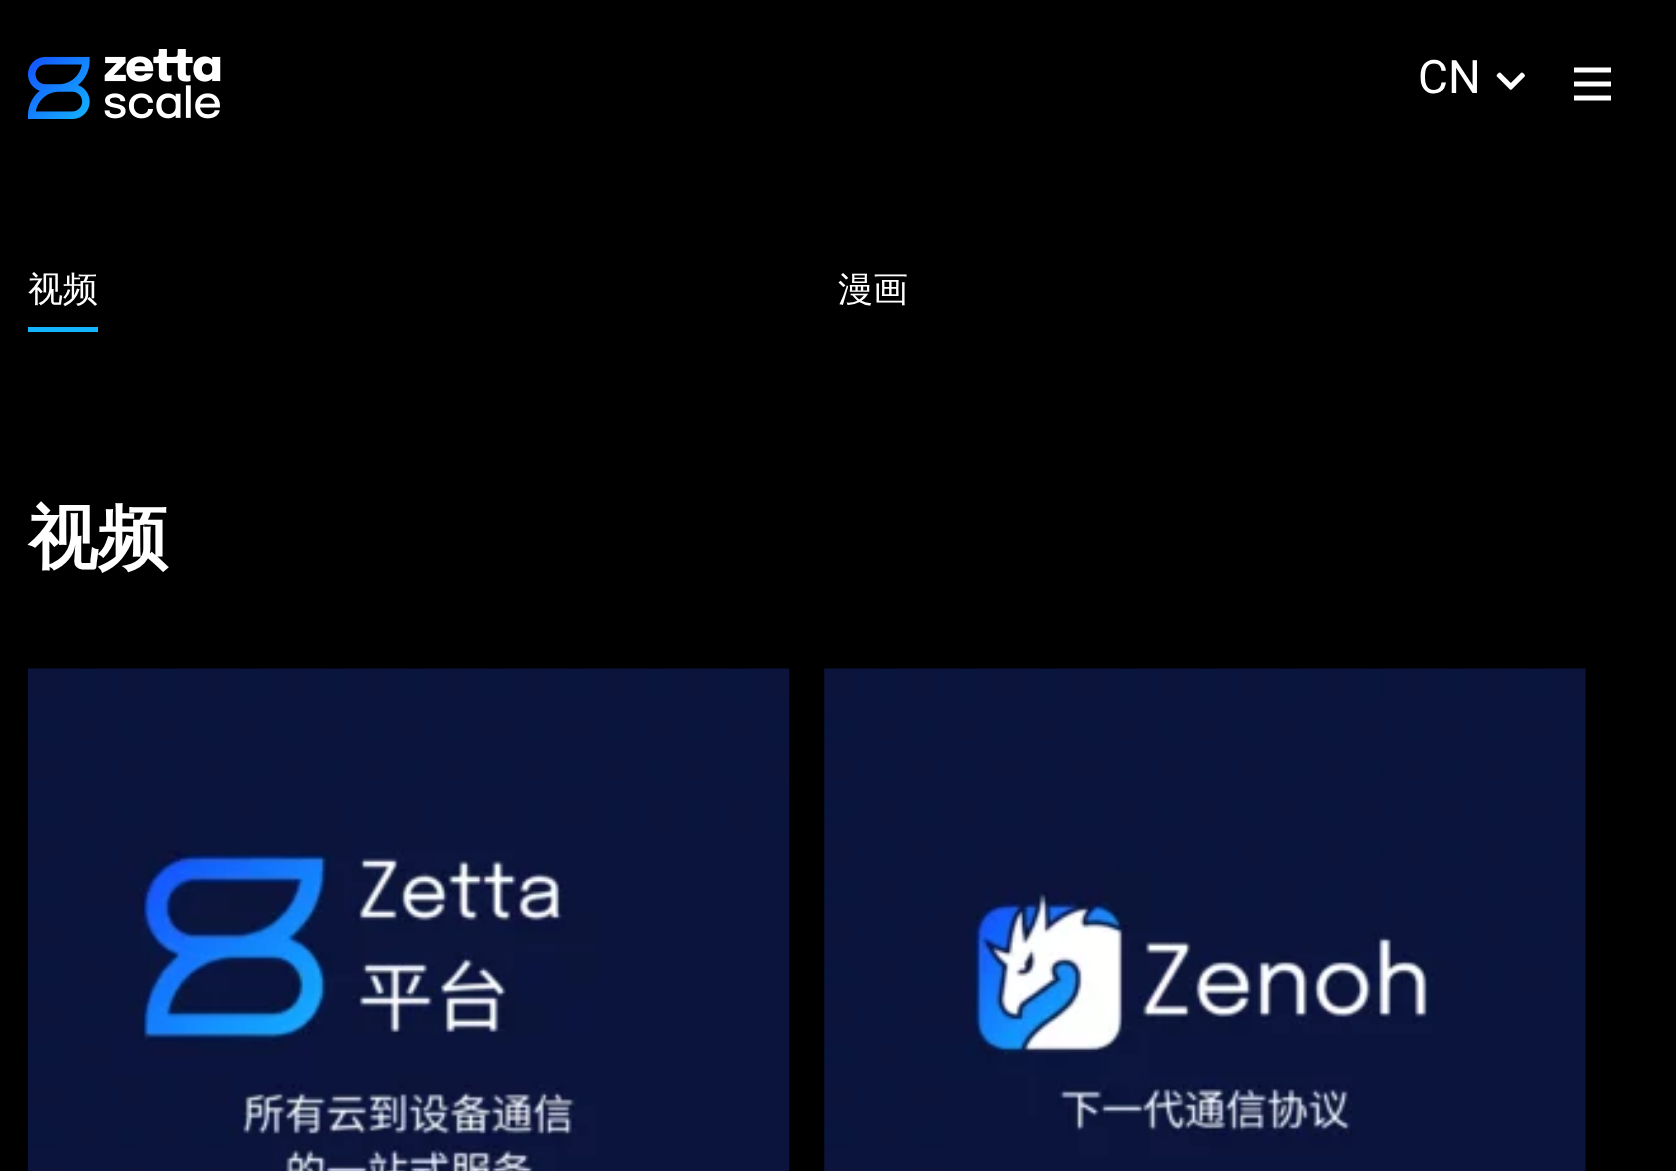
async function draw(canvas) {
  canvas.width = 1676
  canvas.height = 1171
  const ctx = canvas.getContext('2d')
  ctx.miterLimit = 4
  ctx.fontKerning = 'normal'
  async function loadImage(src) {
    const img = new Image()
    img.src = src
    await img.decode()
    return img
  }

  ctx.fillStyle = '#000'
  ctx.fillRect(0, 0, 1676, 1171)
  ctx.drawImage(await loadImage('image0.png'), 28, 49, 193, 70)
  ctx.font = '46px Roboto'
  ctx.fillStyle = '#fff'
  ctx.fillText('CN', 1418, 93)
  ctx.drawImage(await loadImage('image1.png'), 1496, 72, 29, 18)
  ctx.beginPath()
  ctx.moveTo(1574, 70)
  ctx.lineTo(1611, 70)
  ctx.moveTo(1574, 84)
  ctx.lineTo(1611, 84)
  ctx.moveTo(1574, 98)
  ctx.lineTo(1611, 98)
  ctx.strokeStyle = '#fff'
  ctx.lineWidth = 5.2
  ctx.lineJoin = 'round'
  ctx.stroke()
  ctx.font = '500 35px WenQuanYi Zen Hei'
  ctx.fillText('视频', 28, 301)
  ctx.fillStyle = '#14b4ff'
  ctx.fillRect(28, 327, 70, 5)
  ctx.fillStyle = '#fff'
  ctx.fillText('漫画', 838, 301)
  ctx.font = 'bold 70px WenQuanYi Zen Hei'
  ctx.fillText('视频', 28, 562)
  ctx.drawImage(await loadImage('image2.png'), 28, 668, 762, 503)
  ctx.drawImage(await loadImage('image3.png'), 824, 668, 762, 503)
}

draw(document.querySelector('canvas'))
